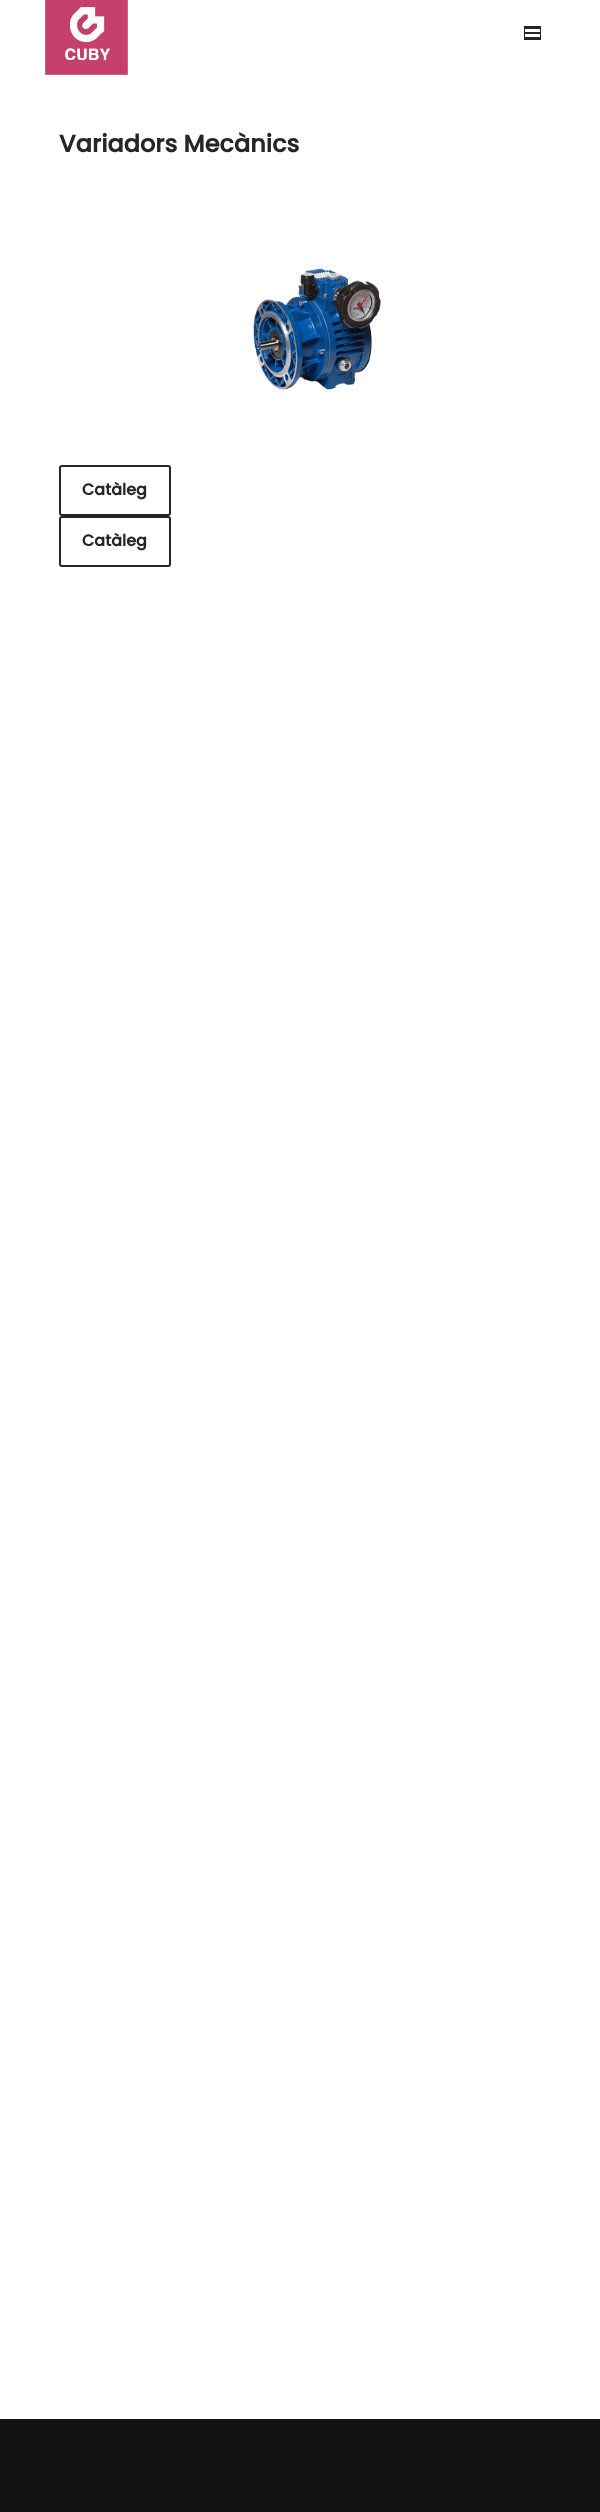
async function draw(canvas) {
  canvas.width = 600
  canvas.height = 2512
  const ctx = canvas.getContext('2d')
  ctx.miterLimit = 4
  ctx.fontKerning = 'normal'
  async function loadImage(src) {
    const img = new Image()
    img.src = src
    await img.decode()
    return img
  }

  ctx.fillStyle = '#fff'
  ctx.fillRect(0, 0, 600, 2512)
  ctx.drawImage(await loadImage('image0.png'), 45, 0, 83, 75)
  ctx.strokeStyle = '#272626'
  ctx.strokeRect(524.5, 26.5, 16, 13)
  ctx.fillStyle = '#272626'
  ctx.fillRect(525, 27, 15, 2)
  ctx.fillRect(525, 32, 15, 2)
  ctx.fillRect(525, 37, 15, 2)
  ctx.font = 'bold 24px Poppins'
  ctx.fillText('Variadors Mecànics', 59, 152)
  ctx.drawImage(await loadImage('image1.png'), 253, 268, 128, 122)
  ctx.beginPath()
  ctx.roundRect(60, 466, 110, 49, 2)
  ctx.lineWidth = 2
  ctx.stroke()
  ctx.font = 'bold 16px Poppins'
  ctx.fillText('Catàleg', 82, 495)
  ctx.beginPath()
  ctx.roundRect(60, 517, 110, 49, 2)
  ctx.stroke()
  ctx.fillText('Catàleg', 82, 546)
  ctx.fillStyle = '#121212'
  ctx.fillRect(0, 2419, 600, 93)
}

draw(document.querySelector('canvas'))
